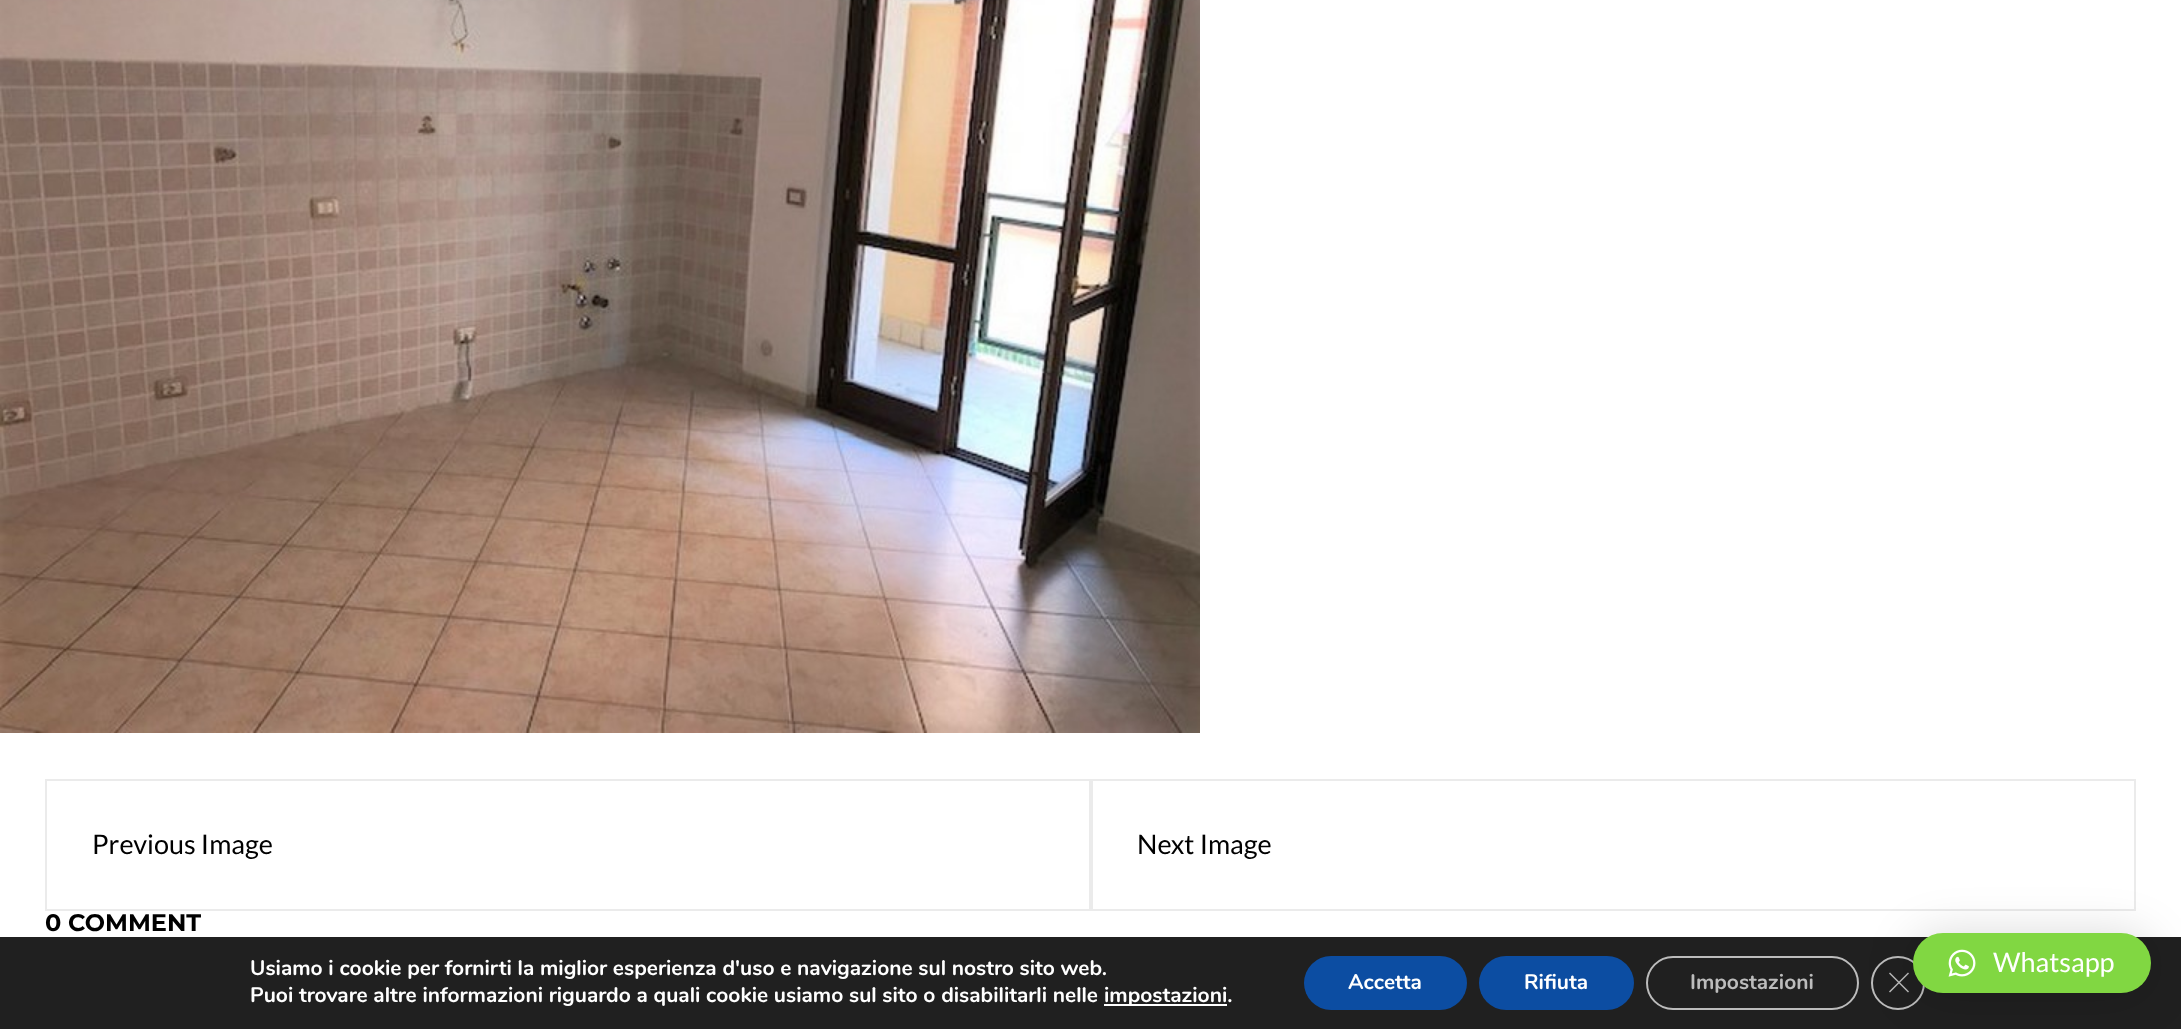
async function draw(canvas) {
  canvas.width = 2181
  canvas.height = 1029
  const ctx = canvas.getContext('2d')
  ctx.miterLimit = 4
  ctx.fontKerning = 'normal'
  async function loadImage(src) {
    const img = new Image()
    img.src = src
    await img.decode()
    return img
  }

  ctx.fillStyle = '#fff'
  ctx.fillRect(0, 0, 2181, 1029)
  ctx.drawImage(await loadImage('image0.png'), 0, 0, 1200, 733)
  ctx.strokeStyle = '#ebebeb'
  ctx.lineWidth = 2
  ctx.strokeRect(46, 780, 1044, 130)
  ctx.font = '27px Lato'
  ctx.fillStyle = '#000'
  ctx.fillText('Previous Image', 92, 854)
  ctx.strokeRect(1092, 780, 1043, 130)
  ctx.fillText('Next Image', 1137, 854)
  ctx.font = 'bold 24px Montserrat'
  ctx.fillText('0 COMMENT', 45, 931)
  ctx.fillStyle = '#202020'
  ctx.fillRect(0, 937, 2181, 92)
  ctx.font = 'bold 21px Nunito'
  ctx.fillStyle = '#fff'
  ctx.fillText('Usiamo i cookie per fornirti la miglior esperienza d\'uso e navigazione sul nostro sito web.', 250, 975)
  ctx.fillText('Puoi trovare altre informazioni riguardo a quali cookie usiamo sul sito o disabilitarli nelle', 250, 1002)
  ctx.fillRect(1104, 1004, 123, 2)
  ctx.fillText('impostazioni.', 1104, 1002)
  ctx.fillStyle = '#0c4da2'
  ctx.beginPath()
  ctx.roundRect(1304, 956, 163, 54, 27)
  ctx.fill()
  ctx.fillStyle = '#fff'
  ctx.fillText('Accetta', 1348, 989)
  ctx.fillStyle = '#0c4da2'
  ctx.beginPath()
  ctx.roundRect(1479, 956, 155, 54, 27)
  ctx.fill()
  ctx.fillStyle = '#fff'
  ctx.fillText('Rifiuta', 1524, 989)
  ctx.beginPath()
  ctx.roundRect(1647, 957, 211, 52, 26)
  ctx.strokeStyle = '#bcbcbc'
  ctx.stroke()
  ctx.fillStyle = '#bcbcbc'
  ctx.fillText('Impostazioni', 1690, 989)
  ctx.beginPath()
  ctx.arc(1898, 983, 26, 0, 2 * Math.PI)
  ctx.stroke()
  ctx.beginPath()
  ctx.moveTo(1908, 972.5)
  ctx.lineTo(1909, 973.5)
  ctx.lineTo(1890, 992.5)
  ctx.lineTo(1889, 991.5)
  ctx.closePath()
  ctx.fill()
  ctx.beginPath()
  ctx.moveTo(1889, 973.5)
  ctx.lineTo(1890, 972.5)
  ctx.lineTo(1909, 991.5)
  ctx.lineTo(1908, 992.5)
  ctx.closePath()
  ctx.fill()
  ctx.fillStyle = '#00000029'
  ctx.filter = 'blur(24px)'
  ctx.beginPath()
  ctx.roundRect(1913, 936, 238, 60, 30)
  ctx.fill()
  ctx.filter = 'none'
  ctx.fillStyle = '#81d742'
  ctx.beginPath()
  ctx.roundRect(1913, 933, 238, 60, 30)
  ctx.fill()
  ctx.drawImage(await loadImage('image1.png'), 1948, 949, 28, 28)
  ctx.font = '27px Lato'
  ctx.fillStyle = '#fff'
  ctx.fillText('Whatsapp', 1993, 972)
}

draw(document.querySelector('canvas'))
